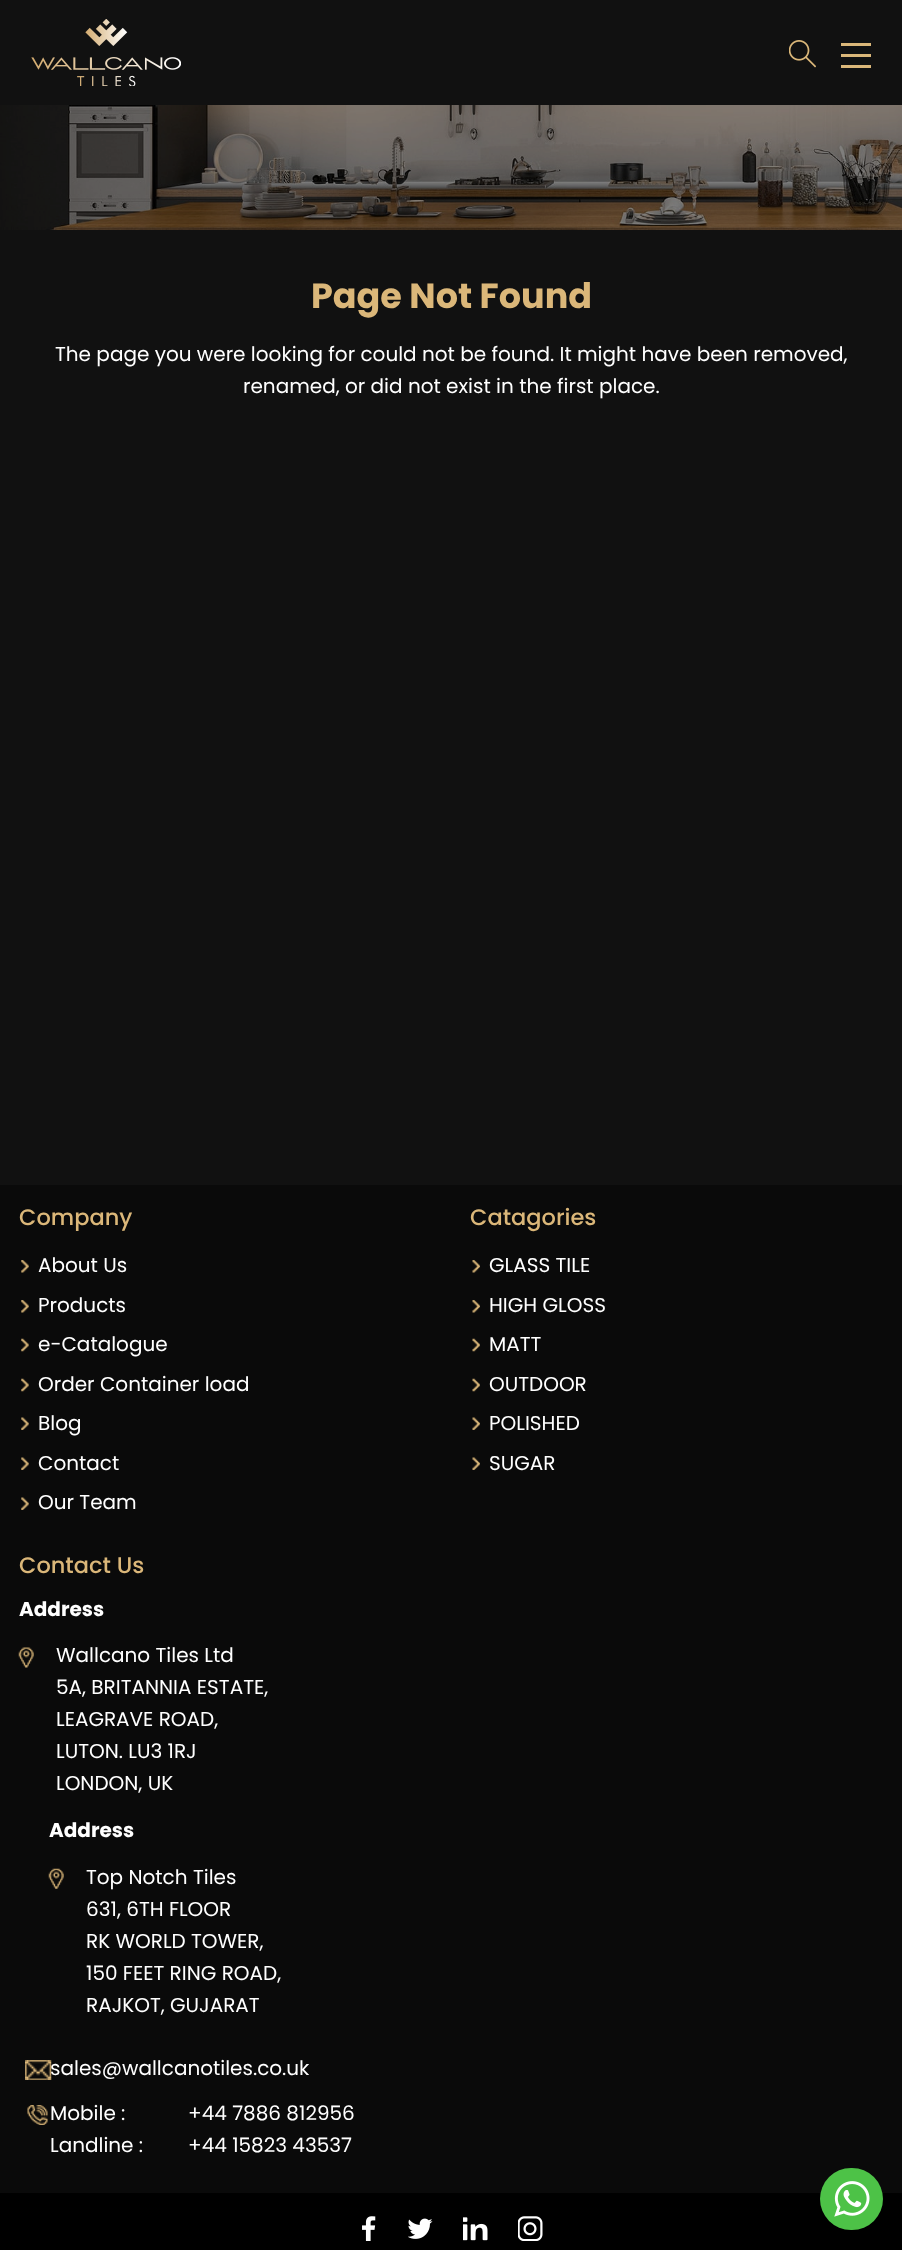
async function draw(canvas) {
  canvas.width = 902
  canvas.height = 2250
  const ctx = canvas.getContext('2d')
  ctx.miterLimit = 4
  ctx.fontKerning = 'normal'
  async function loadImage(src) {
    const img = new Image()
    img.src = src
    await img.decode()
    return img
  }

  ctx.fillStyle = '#111'
  ctx.fillRect(0, 0, 902, 2250)
  ctx.drawImage(await loadImage('image0.png'), 31, 19, 150, 67)
  ctx.drawImage(await loadImage('image1.png'), 789, 40, 27, 28)
  ctx.fillStyle = '#dbb779'
  ctx.fillRect(841, 43, 30, 3)
  ctx.fillRect(841, 54, 30, 3)
  ctx.fillRect(841, 65, 30, 3)
  ctx.drawImage(await loadImage('image2.png'), 0, 105, 902, 125)
  ctx.font = 'bold 35px Poppins'
  ctx.fillText('Page Not Found', 311, 308)
  ctx.font = '20px Poppins'
  ctx.fillStyle = '#fff'
  ctx.fillText('The page you were looking for could not be found. It might have been removed,', 55, 361)
  ctx.fillText('renamed, or did not exist in the first place.', 243, 393)
  ctx.fillStyle = '#0a0a0a'
  ctx.fillRect(0, 1185, 902, 1008)
  ctx.font = '500 22.5px Poppins'
  ctx.fillStyle = '#dbb779'
  ctx.fillText('Company', 19, 1225)
  ctx.drawImage(await loadImage('image3.png'), 21, 1260, 8, 13)
  ctx.font = '20px Poppins'
  ctx.fillStyle = '#fff'
  ctx.fillText('About Us', 38, 1272)
  ctx.drawImage(await loadImage('image3.png'), 21, 1300, 8, 13)
  ctx.fillText('Products', 38, 1312)
  ctx.drawImage(await loadImage('image4.png'), 21, 1338, 8, 14)
  ctx.fillText('e-Catalogue', 38, 1351)
  ctx.drawImage(await loadImage('image4.png'), 21, 1378, 8, 14)
  ctx.fillText('Order Container load', 38, 1391)
  ctx.drawImage(await loadImage('image5.png'), 21, 1417, 8, 13)
  ctx.fillText('Blog', 38, 1430)
  ctx.drawImage(await loadImage('image5.png'), 21, 1457, 8, 13)
  ctx.fillText('Contact', 38, 1470)
  ctx.drawImage(await loadImage('image5.png'), 21, 1497, 8, 13)
  ctx.fillText('Our Team', 38, 1509)
  ctx.font = '500 22.5px Poppins'
  ctx.fillStyle = '#dbb779'
  ctx.fillText('Catagories', 470, 1225)
  ctx.drawImage(await loadImage('image6.png'), 472, 1260, 8, 13)
  ctx.font = '20px Poppins'
  ctx.fillStyle = '#fff'
  ctx.fillText('GLASS TILE', 489, 1272)
  ctx.drawImage(await loadImage('image6.png'), 472, 1300, 8, 13)
  ctx.fillText('HIGH GLOSS', 489, 1312)
  ctx.drawImage(await loadImage('image7.png'), 472, 1338, 8, 14)
  ctx.fillText('MATT', 489, 1351)
  ctx.drawImage(await loadImage('image7.png'), 472, 1378, 8, 14)
  ctx.fillText('OUTDOOR', 489, 1391)
  ctx.drawImage(await loadImage('image8.png'), 472, 1417, 8, 13)
  ctx.fillText('POLISHED', 489, 1430)
  ctx.drawImage(await loadImage('image8.png'), 472, 1457, 8, 13)
  ctx.fillText('SUGAR', 489, 1470)
  ctx.font = '500 22.5px Poppins'
  ctx.fillStyle = '#dbb779'
  ctx.fillText('Contact Us', 19, 1573)
  ctx.font = 'bold 20px Poppins'
  ctx.fillStyle = '#fff'
  ctx.fillText('Address', 19, 1616)
  ctx.drawImage(await loadImage('image9.png'), 18, 1647, 16, 21)
  ctx.font = '20px Poppins'
  ctx.fillText('Wallcano Tiles Ltd', 56, 1662)
  ctx.fillText('5A, BRITANNIA ESTATE,', 56, 1694)
  ctx.fillText('LEAGRAVE ROAD,', 56, 1726)
  ctx.fillText('LUTON. LU3 1RJ', 56, 1758)
  ctx.fillText('LONDON, UK', 56, 1790)
  ctx.font = 'bold 20px Poppins'
  ctx.fillText('Address', 49, 1837)
  ctx.drawImage(await loadImage('image10.png'), 48, 1868, 16, 21)
  ctx.font = '20px Poppins'
  ctx.fillText('Top Notch Tiles', 86, 1884)
  ctx.fillText('631, 6TH FLOOR', 86, 1916)
  ctx.fillText('RK WORLD TOWER,', 86, 1948)
  ctx.fillText('150 FEET RING ROAD,', 86, 1980)
  ctx.fillText('RAJKOT, GUJARAT', 86, 2012)
  ctx.fillText('sales@wallcanotiles.co.uk', 50, 2075)
  ctx.drawImage(await loadImage('image11.png'), 25, 2060, 27, 20)
  ctx.drawImage(await loadImage('image12.png'), 27, 2105, 21, 20)
  ctx.fillText('Mobile :', 50, 2120)
  ctx.fillText('+44 7886 812956', 188, 2120)
  ctx.fillText('Landline :', 50, 2152)
  ctx.fillText('+44 15823 43537', 188, 2152)
  ctx.fillStyle = '#000'
  ctx.fillRect(0, 2193, 902, 57)
  ctx.drawImage(await loadImage('image13.png'), 362, 2216, 14, 25)
  ctx.drawImage(await loadImage('image14.png'), 408, 2218, 25, 21)
  ctx.drawImage(await loadImage('image15.png'), 463, 2217, 25, 24)
  ctx.drawImage(await loadImage('image16.png'), 518, 2216, 25, 25)
  ctx.fillStyle = '#4dc247'
  ctx.beginPath()
  ctx.roundRect(820, 2168, 63, 62, 31)
  ctx.fill()
  ctx.drawImage(await loadImage('image17.png'), 834, 2181, 36, 36)
}

draw(document.querySelector('canvas'))
